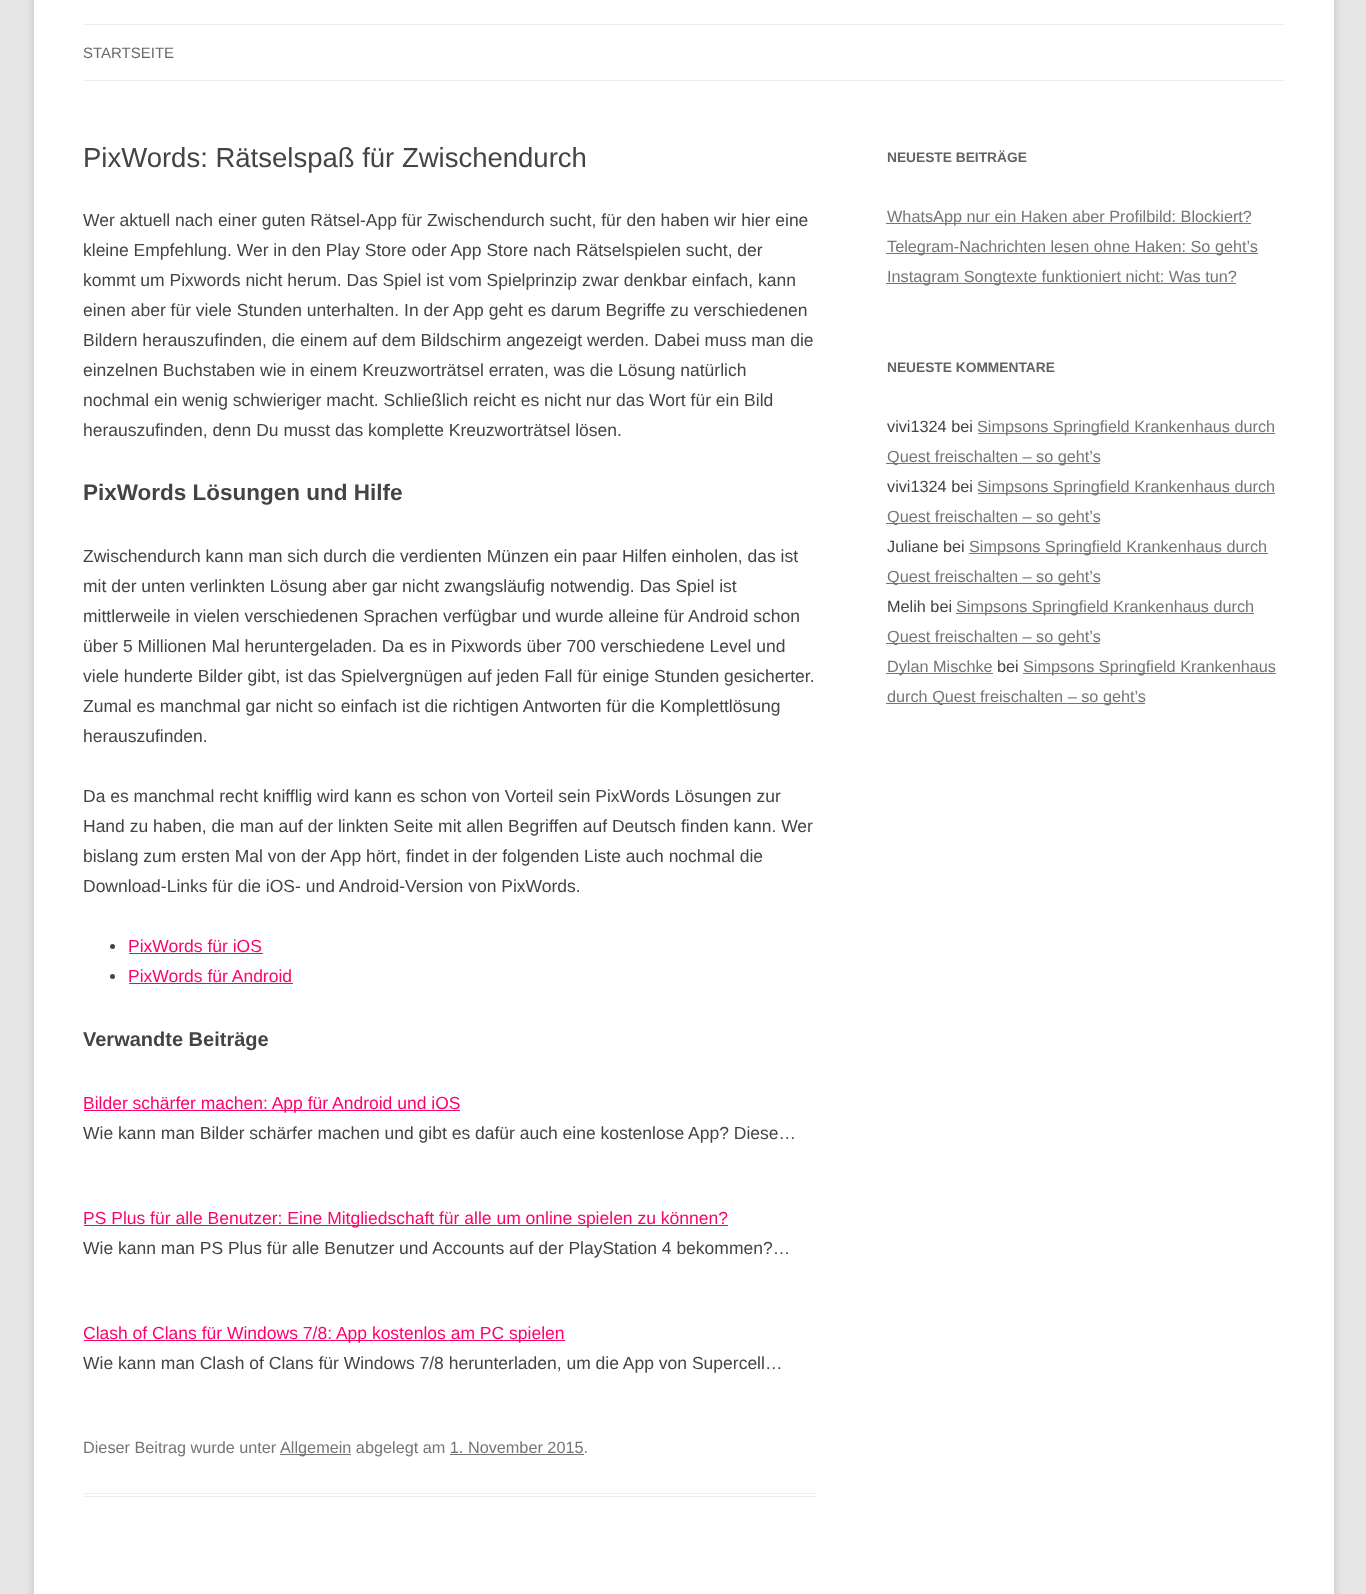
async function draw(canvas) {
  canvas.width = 1366
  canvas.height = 1594
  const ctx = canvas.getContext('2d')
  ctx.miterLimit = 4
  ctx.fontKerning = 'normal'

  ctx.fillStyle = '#e6e6e6'
  ctx.fillRect(0, 0, 1366, 1594)
  ctx.fillStyle = '#6464644d'
  ctx.filter = 'blur(4px)'
  ctx.beginPath()
  ctx.rect(34, -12, 1300, 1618)
  ctx.fill()
  ctx.filter = 'none'
  ctx.fillStyle = '#fff'
  ctx.fillRect(34, 0, 1300, 1594)
  ctx.fillStyle = '#ededed'
  ctx.fillRect(84, 24, 1200, 1)
  ctx.fillRect(84, 80, 1200, 1)
  ctx.font = '15px Liberation Sans'
  ctx.fillStyle = '#6a6a6a'
  ctx.fillText('STARTSEITE', 83, 58)
  ctx.fillStyle = '#ededed'
  ctx.fillRect(84, 1493, 732, 1)
  ctx.fillRect(84, 1496, 732, 1)
  ctx.font = '27.5px Liberation Sans'
  ctx.fillStyle = '#444'
  ctx.fillText('PixWords: Rätselspaß für Zwischendurch', 83, 167)
  ctx.font = '17.5px Liberation Sans'
  ctx.fillText('Wer aktuell nach einer guten Rätsel-App für Zwischendurch sucht, für den haben wir hier eine', 83, 226)
  ctx.fillText('kleine Empfehlung. Wer in den Play Store oder App Store nach Rätselspielen sucht, der', 83, 256)
  ctx.fillText('kommt um Pixwords nicht herum. Das Spiel ist vom Spielprinzip zwar denkbar einfach, kann', 83, 286)
  ctx.fillText('einen aber für viele Stunden unterhalten. In der App geht es darum Begriffe zu verschiedenen', 83, 316)
  ctx.fillText('Bildern herauszufinden, die einem auf dem Bildschirm angezeigt werden. Dabei muss man die', 83, 346)
  ctx.fillText('einzelnen Buchstaben wie in einem Kreuzworträtsel erraten, was die Lösung natürlich', 83, 376)
  ctx.fillText('nochmal ein wenig schwieriger macht. Schließlich reicht es nicht nur das Wort für ein Bild', 83, 406)
  ctx.fillText('herauszufinden, denn Du musst das komplette Kreuzworträtsel lösen.', 83, 436)
  ctx.font = 'bold 22.5px Liberation Sans'
  ctx.fillText('PixWords Lösungen und Hilfe', 83, 500)
  ctx.font = '17.5px Liberation Sans'
  ctx.fillText('Zwischendurch kann man sich durch die verdienten Münzen ein paar Hilfen einholen, das ist', 83, 562)
  ctx.fillText('mit der unten verlinkten Lösung aber gar nicht zwangsläufig notwendig. Das Spiel ist', 83, 592)
  ctx.fillText('mittlerweile in vielen verschiedenen Sprachen verfügbar und wurde alleine für Android schon', 83, 622)
  ctx.fillText('über 5 Millionen Mal heruntergeladen. Da es in Pixwords über 700 verschiedene Level und', 83, 652)
  ctx.fillText('viele hunderte Bilder gibt, ist das Spielvergnügen auf jeden Fall für einige Stunden gesicherter.', 83, 682)
  ctx.fillText('Zumal es manchmal gar nicht so einfach ist die richtigen Antworten für die Komplettlösung', 83, 712)
  ctx.fillText('herauszufinden.', 83, 742)
  ctx.fillText('Da es manchmal recht knifflig wird kann es schon von Vorteil sein PixWords Lösungen zur', 83, 802)
  ctx.fillText('Hand zu haben, die man auf der linkten Seite mit allen Begriffen auf Deutsch finden kann. Wer', 83, 832)
  ctx.fillText('bislang zum ersten Mal von der App hört, findet in der folgenden Liste auch nochmal die', 83, 862)
  ctx.fillText('Download-Links für die iOS- und Android-Version von PixWords.', 83, 892)
  ctx.beginPath()
  ctx.arc(112.5, 946.5, 2.5, 0, 2 * Math.PI)
  ctx.fill()
  ctx.fillStyle = '#ff006e'
  ctx.fillText('PixWords für iOS', 128, 952)
  ctx.fillRect(129, 953, 134, 1)
  ctx.fillStyle = '#444'
  ctx.beginPath()
  ctx.arc(112.5, 976.5, 2.5, 0, 2 * Math.PI)
  ctx.fill()
  ctx.fillStyle = '#ff006e'
  ctx.fillText('PixWords für Android', 128, 982)
  ctx.fillRect(129, 983, 164, 1)
  ctx.font = 'bold 20px Liberation Sans'
  ctx.fillStyle = '#444'
  ctx.fillText('Verwandte Beiträge', 83, 1046)
  ctx.fillStyle = '#ff006e'
  ctx.fillRect(84, 1110, 376, 1)
  ctx.font = '17.5px Liberation Sans'
  ctx.fillText('Bilder schärfer machen: App für Android und iOS', 83, 1109)
  ctx.fillStyle = '#444'
  ctx.fillText('Wie kann man Bilder schärfer machen und gibt es dafür auch eine kostenlose App? Diese…', 83, 1139)
  ctx.fillStyle = '#ff006e'
  ctx.fillRect(84, 1225, 644, 1)
  ctx.fillText('PS Plus für alle Benutzer: Eine Mitgliedschaft für alle um online spielen zu können?', 83, 1224)
  ctx.fillStyle = '#444'
  ctx.fillText('Wie kann man PS Plus für alle Benutzer und Accounts auf der PlayStation 4 bekommen?…', 83, 1254)
  ctx.fillStyle = '#ff006e'
  ctx.fillRect(84, 1340, 481, 1)
  ctx.fillText('Clash of Clans für Windows 7/8: App kostenlos am PC spielen', 83, 1339)
  ctx.fillStyle = '#444'
  ctx.fillText('Wie kann man Clash of Clans für Windows 7/8 herunterladen, um die App von Supercell…', 83, 1369)
  ctx.font = '16.25px Liberation Sans'
  ctx.fillStyle = '#757575'
  ctx.fillText('Dieser Beitrag wurde unter', 83, 1453)
  ctx.fillRect(280, 1454, 71, 1)
  ctx.fillText('Allgemein abgelegt am 1. November 2015.', 280, 1453)
  ctx.fillRect(450, 1454, 134, 1)
  ctx.font = 'bold 13.75px Liberation Sans'
  ctx.fillStyle = '#636363'
  ctx.fillText('NEUESTE BEITRÄGE', 887, 162)
  ctx.fillStyle = '#757575'
  ctx.fillRect(886, 223, 365, 1)
  ctx.font = '16.25px Liberation Sans'
  ctx.fillText('WhatsApp nur ein Haken aber Profilbild: Blockiert?', 887, 222)
  ctx.fillRect(886, 253, 372, 1)
  ctx.fillText('Telegram-Nachrichten lesen ohne Haken: So geht’s', 887, 252)
  ctx.fillRect(886, 283, 350, 1)
  ctx.fillText('Instagram Songtexte funktioniert nicht: Was tun?', 887, 282)
  ctx.font = 'bold 13.75px Liberation Sans'
  ctx.fillStyle = '#636363'
  ctx.fillText('NEUESTE KOMMENTARE', 887, 372)
  ctx.font = '16.25px Liberation Sans'
  ctx.fillStyle = '#444'
  ctx.fillText('vivi1324 bei', 887, 432)
  ctx.fillStyle = '#757575'
  ctx.fillRect(978, 433, 297, 1)
  ctx.fillText('Simpsons Springfield Krankenhaus durch', 977, 432)
  ctx.fillRect(886, 463, 214, 1)
  ctx.fillText('Quest freischalten – so geht’s', 887, 462)
  ctx.fillStyle = '#444'
  ctx.fillText('vivi1324 bei', 887, 492)
  ctx.fillStyle = '#757575'
  ctx.fillRect(978, 493, 297, 1)
  ctx.fillText('Simpsons Springfield Krankenhaus durch', 977, 492)
  ctx.fillRect(886, 523, 214, 1)
  ctx.fillText('Quest freischalten – so geht’s', 887, 522)
  ctx.fillStyle = '#444'
  ctx.fillText('Juliane bei', 887, 552)
  ctx.fillStyle = '#757575'
  ctx.fillRect(969, 553, 299, 1)
  ctx.fillText('Simpsons Springfield Krankenhaus durch', 969, 552)
  ctx.fillRect(886, 583, 214, 1)
  ctx.fillText('Quest freischalten – so geht’s', 887, 582)
  ctx.fillStyle = '#444'
  ctx.fillText('Melih bei', 887, 612)
  ctx.fillStyle = '#757575'
  ctx.fillRect(956, 613, 298, 1)
  ctx.fillText('Simpsons Springfield Krankenhaus durch', 956, 612)
  ctx.fillRect(886, 643, 214, 1)
  ctx.fillText('Quest freischalten – so geht’s', 887, 642)
  ctx.fillRect(886, 673, 107, 1)
  ctx.fillText('Dylan Mischke', 887, 672)
  ctx.fillStyle = '#444'
  ctx.fillText('bei', 997, 672)
  ctx.fillStyle = '#757575'
  ctx.fillRect(1023, 673, 253, 1)
  ctx.fillText('Simpsons Springfield Krankenhaus', 1023, 672)
  ctx.fillRect(886, 703, 259, 1)
  ctx.fillText('durch Quest freischalten – so geht’s', 887, 702)
}

draw(document.querySelector('canvas'))
